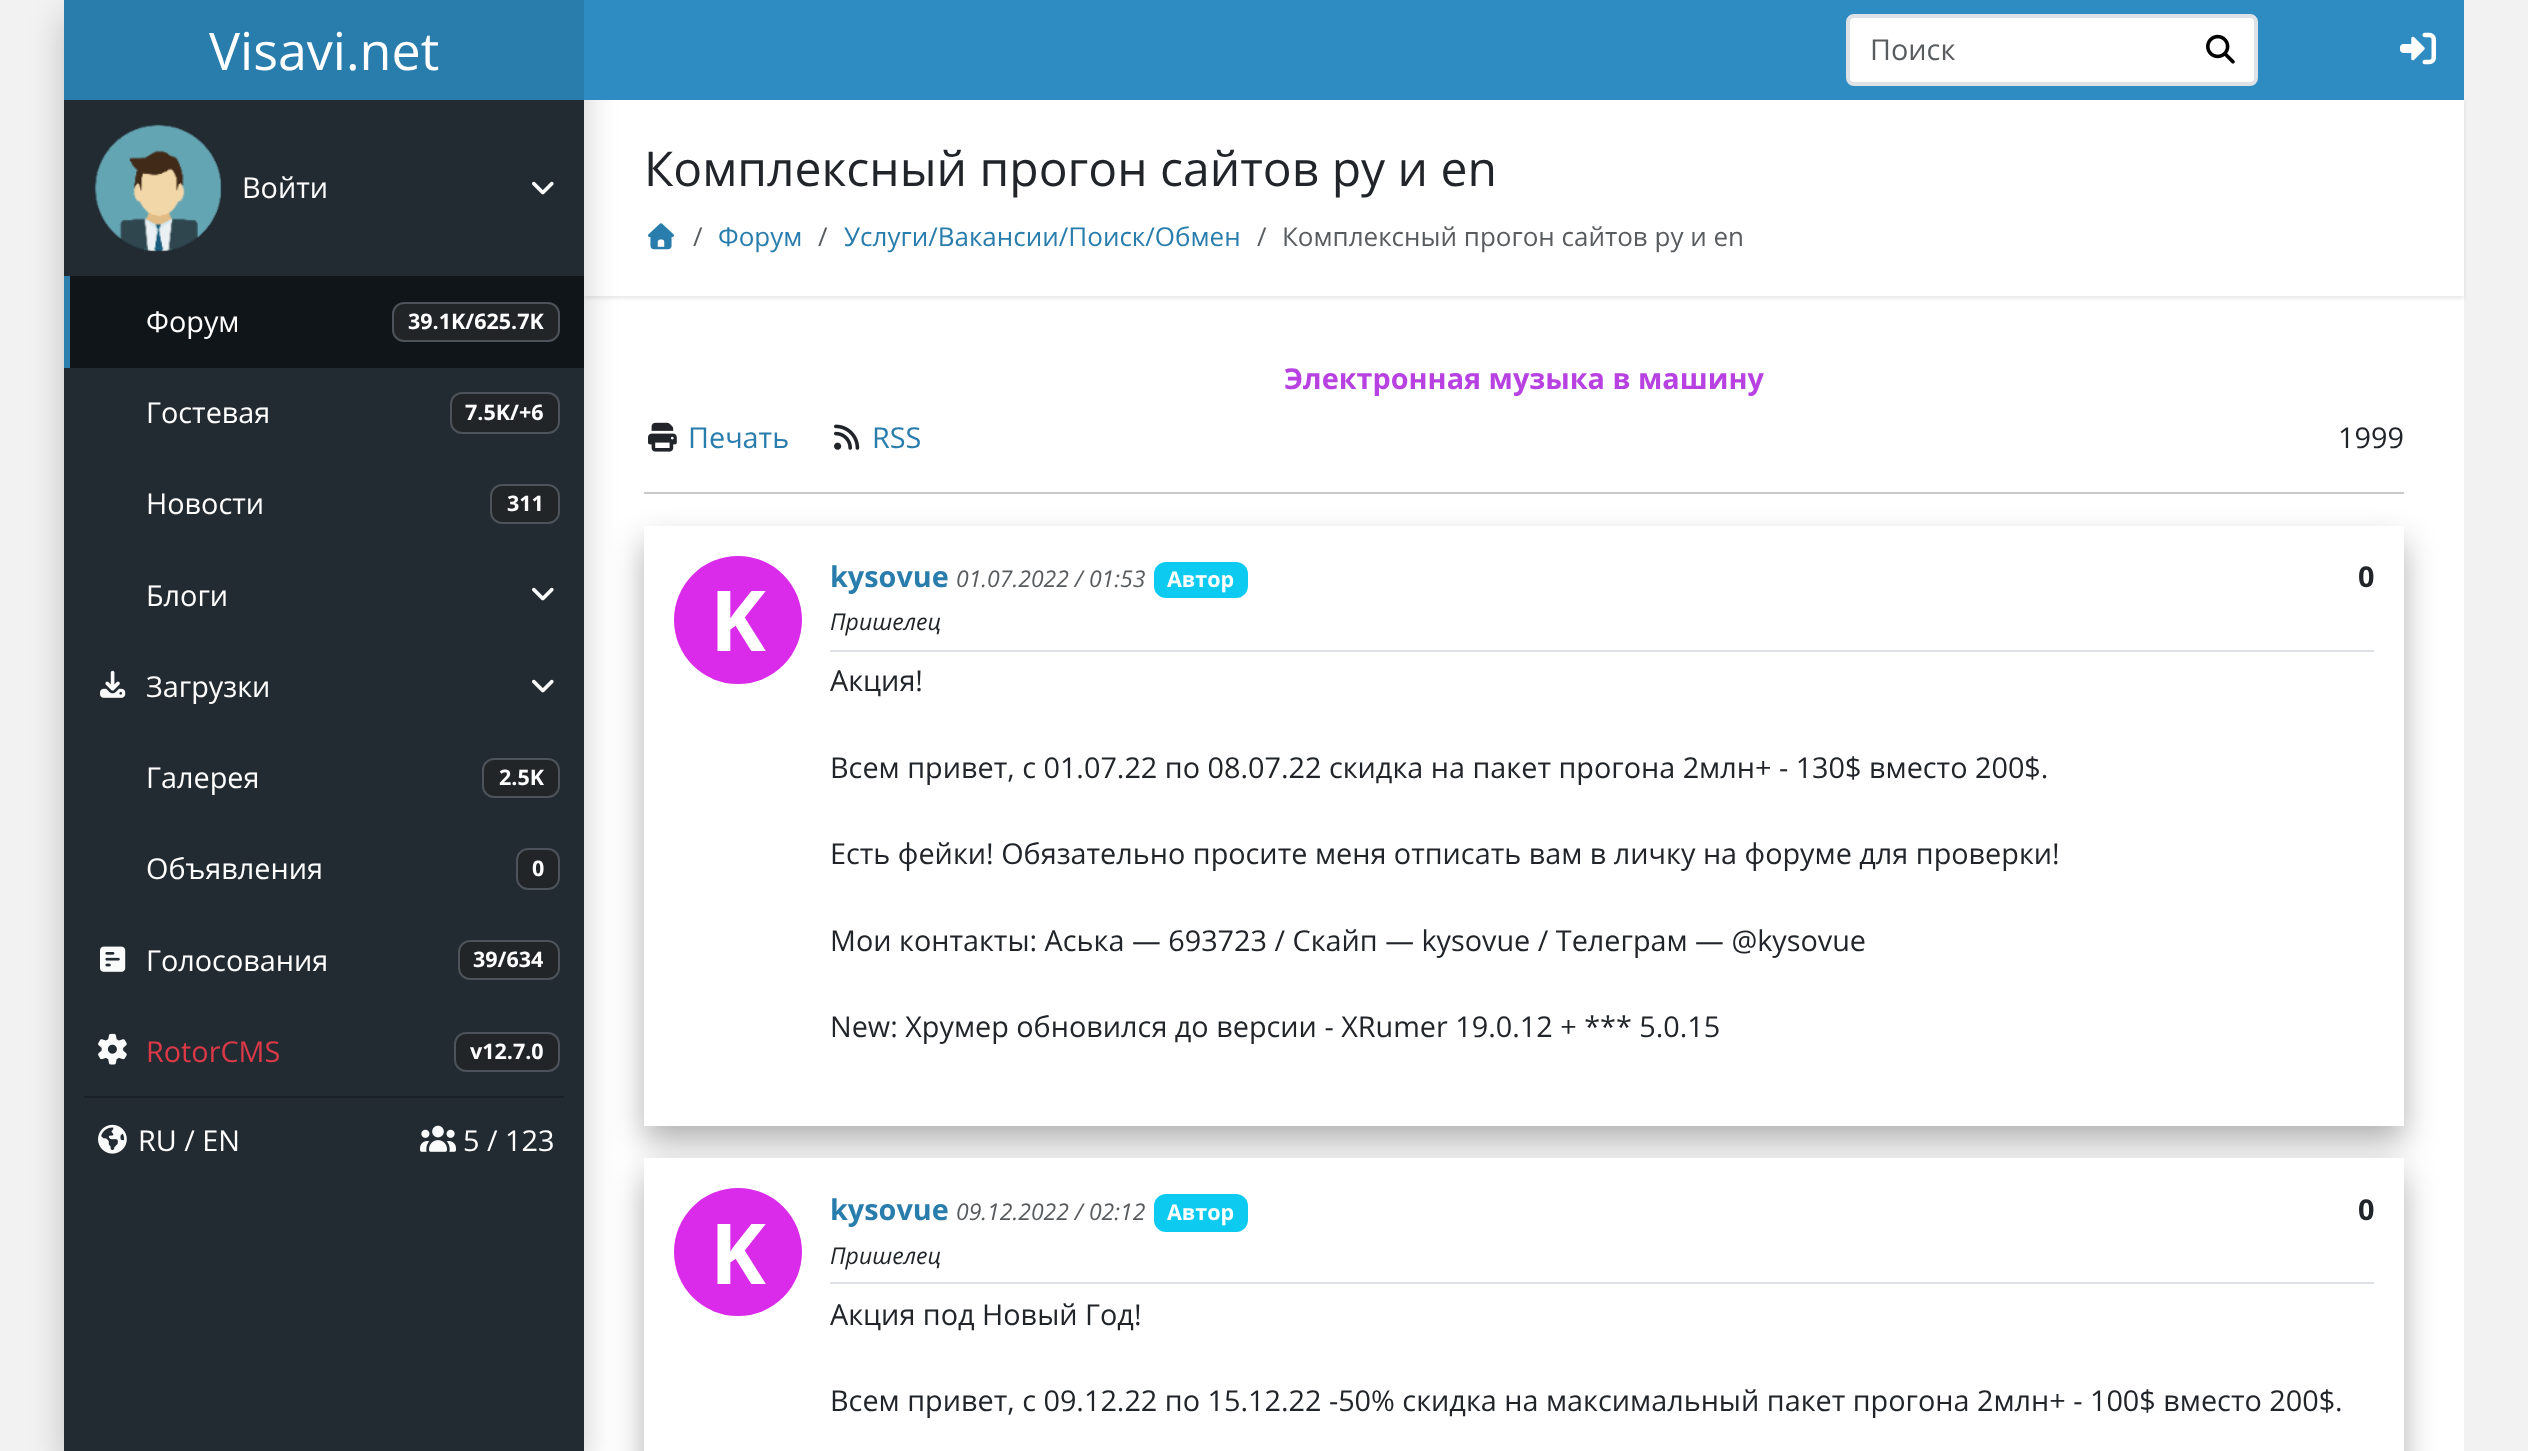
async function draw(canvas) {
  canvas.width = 2528
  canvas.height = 1451
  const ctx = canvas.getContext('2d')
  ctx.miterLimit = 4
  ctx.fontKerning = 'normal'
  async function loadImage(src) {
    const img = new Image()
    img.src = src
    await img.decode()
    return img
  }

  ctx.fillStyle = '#f2f2f2'
  ctx.fillRect(0, 0, 2528, 1451)
  ctx.fillStyle = '#fff'
  ctx.fillRect(584, 100, 1880, 1351)
  ctx.save()
  ctx.beginPath()
  ctx.moveTo(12, 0)
  ctx.lineTo(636, 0)
  ctx.lineTo(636, 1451)
  ctx.lineTo(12, 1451)
  ctx.closePath()
  ctx.moveTo(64, 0)
  ctx.lineTo(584, 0)
  ctx.lineTo(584, 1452)
  ctx.lineTo(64, 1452)
  ctx.closePath()
  ctx.clip('evenodd')
  ctx.fillStyle = '#00000033'
  ctx.filter = 'blur(17px)'
  ctx.beginPath()
  ctx.rect(64, 16, 520, 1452)
  ctx.fill()
  ctx.filter = 'none'
  ctx.restore()
  ctx.save()
  ctx.beginPath()
  ctx.moveTo(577, 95)
  ctx.lineTo(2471, 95)
  ctx.lineTo(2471, 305)
  ctx.lineTo(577, 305)
  ctx.closePath()
  ctx.moveTo(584, 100)
  ctx.lineTo(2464, 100)
  ctx.lineTo(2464, 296)
  ctx.lineTo(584, 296)
  ctx.closePath()
  ctx.clip('evenodd')
  ctx.fillStyle = '#0000001a'
  ctx.filter = 'blur(2px)'
  ctx.beginPath()
  ctx.rect(584, 102, 1880, 196)
  ctx.fill()
  ctx.filter = 'none'
  ctx.restore()
  ctx.fillStyle = '#2e8cc2'
  ctx.fillRect(584, 0, 1880, 100)
  ctx.fillStyle = '#297dad'
  ctx.fillRect(64, 0, 520, 100)
  ctx.font = '52px Open Sans'
  ctx.fillStyle = '#fff'
  ctx.fillText('Visavi.net', 209, 70)
  ctx.beginPath()
  ctx.roundRect(1848, 16, 408, 68, 6)
  ctx.fill()
  ctx.strokeStyle = '#dee2e6'
  ctx.lineWidth = 4
  ctx.stroke()
  ctx.font = '28.8px Open Sans'
  ctx.fillStyle = '#595c5f'
  ctx.fillText('Поиск', 1870, 60)
  ctx.drawImage(await loadImage('image0.png'), 2206, 34, 29, 30)
  ctx.drawImage(await loadImage('image1.png'), 2400, 32, 36, 33)
  ctx.fillStyle = '#1e272efa'
  ctx.fillRect(64, 100, 520, 1351)
  ctx.drawImage(await loadImage('image2.png'), 94, 124, 128, 128)
  ctx.fillStyle = '#fff'
  ctx.fillText('Войти', 242, 198)
  ctx.drawImage(await loadImage('image3.png'), 532, 181, 22, 14)
  ctx.fillStyle = '#101519'
  ctx.fillRect(70, 276, 514, 92)
  ctx.fillStyle = '#2d7fae'
  ctx.fillRect(64, 276, 6, 92)
  ctx.fillStyle = '#fff'
  ctx.fillText('Форум', 146, 332)
  ctx.fillStyle = '#212528'
  ctx.beginPath()
  ctx.roundRect(393, 303, 166, 38, 11)
  ctx.fill()
  ctx.strokeStyle = '#4c535a'
  ctx.lineWidth = 2
  ctx.stroke()
  ctx.font = 'bold 21.5px Open Sans'
  ctx.fillStyle = '#fff'
  ctx.fillText('39.1K/625.7K', 408, 329)
  ctx.font = '28.8px Open Sans'
  ctx.fillText('Гостевая', 146, 423)
  ctx.fillStyle = '#212528'
  ctx.beginPath()
  ctx.roundRect(451, 393, 108, 40, 11)
  ctx.fill()
  ctx.stroke()
  ctx.font = 'bold 21.5px Open Sans'
  ctx.fillStyle = '#fff'
  ctx.fillText('7.5K/+6', 465, 420)
  ctx.font = '28.8px Open Sans'
  ctx.fillText('Новости', 146, 514)
  ctx.fillStyle = '#212528'
  ctx.beginPath()
  ctx.roundRect(491, 485, 68, 38, 11)
  ctx.fill()
  ctx.stroke()
  ctx.font = 'bold 21.5px Open Sans'
  ctx.fillStyle = '#fff'
  ctx.fillText('311', 507, 511)
  ctx.font = '28.8px Open Sans'
  ctx.fillText('Блоги', 146, 606)
  ctx.drawImage(await loadImage('image3.png'), 532, 587, 22, 14)
  ctx.drawImage(await loadImage('image4.png'), 100, 670, 26, 28)
  ctx.fillText('Загрузки', 146, 697)
  ctx.drawImage(await loadImage('image3.png'), 532, 679, 22, 14)
  ctx.fillText('Галерея', 146, 788)
  ctx.fillStyle = '#212528'
  ctx.beginPath()
  ctx.roundRect(483, 759, 76, 38, 11)
  ctx.fill()
  ctx.stroke()
  ctx.font = 'bold 21.5px Open Sans'
  ctx.fillStyle = '#fff'
  ctx.fillText('2.5K', 499, 785)
  ctx.font = '28.8px Open Sans'
  ctx.fillText('Объявления', 146, 879)
  ctx.fillStyle = '#212528'
  ctx.beginPath()
  ctx.roundRect(517, 849, 42, 40, 11)
  ctx.fill()
  ctx.stroke()
  ctx.font = 'bold 21.5px Open Sans'
  ctx.fillStyle = '#fff'
  ctx.fillText('0', 532, 876)
  ctx.drawImage(await loadImage('image5.png'), 100, 946, 26, 26)
  ctx.font = '28.8px Open Sans'
  ctx.fillText('Голосования', 146, 971)
  ctx.fillStyle = '#212528'
  ctx.beginPath()
  ctx.roundRect(459, 941, 100, 38, 11)
  ctx.fill()
  ctx.stroke()
  ctx.font = 'bold 21.5px Open Sans'
  ctx.fillStyle = '#fff'
  ctx.fillText('39/634', 473, 967)
  ctx.drawImage(await loadImage('image6.png'), 98, 1033, 29, 32)
  ctx.font = '28.8px Open Sans'
  ctx.fillStyle = '#dc3948'
  ctx.fillText('RotorCMS', 146, 1062)
  ctx.fillStyle = '#212528'
  ctx.beginPath()
  ctx.roundRect(455, 1033, 104, 38, 11)
  ctx.fill()
  ctx.stroke()
  ctx.font = 'bold 21.5px Open Sans'
  ctx.fillStyle = '#fff'
  ctx.fillText('v12.7.0', 470, 1059)
  ctx.fillStyle = '#1b2227'
  ctx.fillRect(84, 1096, 480, 2)
  ctx.drawImage(await loadImage('image7.png'), 98, 1124, 29, 30)
  ctx.font = '28.8px Open Sans'
  ctx.fillStyle = '#fff'
  ctx.fillText('RU / EN', 138, 1151)
  ctx.drawImage(await loadImage('image8.png'), 420, 1125, 36, 27)
  ctx.fillText('5 / 123', 463, 1151)
  ctx.font = '48px Open Sans'
  ctx.fillStyle = '#212529'
  ctx.fillText('Комплексный прогон сайтов ру и en', 644, 186)
  ctx.drawImage(await loadImage('image9.png'), 648, 223, 26, 27)
  ctx.font = '26px Open Sans'
  ctx.fillStyle = '#595c5f'
  ctx.fillText('/', 693, 246)
  ctx.fillStyle = '#297dad'
  ctx.fillText('Форум', 718, 246)
  ctx.fillStyle = '#595c5f'
  ctx.fillText('/', 818, 246)
  ctx.fillStyle = '#297dad'
  ctx.fillText('Услуги/Вакансии/Поиск/Обмен', 844, 246)
  ctx.fillStyle = '#595c5f'
  ctx.fillText('/', 1257, 246)
  ctx.fillText('Комплексный прогон сайтов ру и en', 1282, 246)
  ctx.font = 'bold 28.8px Open Sans'
  ctx.fillStyle = '#b741e1'
  ctx.fillText('Электронная музыка в машину', 1284, 389)
  ctx.drawImage(await loadImage('image10.png'), 648, 422, 29, 30)
  ctx.font = '28.8px Open Sans'
  ctx.fillStyle = '#297dad'
  ctx.fillText('Печать', 688, 448)
  ctx.drawImage(await loadImage('image11.png'), 834, 424, 26, 26)
  ctx.fillText('RSS', 872, 448)
  ctx.fillStyle = '#212529'
  ctx.fillText('1999', 2338, 448)
  ctx.save()
  ctx.beginPath()
  ctx.moveTo(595, 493)
  ctx.lineTo(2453, 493)
  ctx.lineTo(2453, 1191)
  ctx.lineTo(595, 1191)
  ctx.closePath()
  ctx.moveTo(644, 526)
  ctx.lineTo(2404, 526)
  ctx.lineTo(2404, 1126)
  ctx.lineTo(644, 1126)
  ctx.closePath()
  ctx.clip('evenodd')
  ctx.fillStyle = '#0000004d'
  ctx.filter = 'blur(16px)'
  ctx.beginPath()
  ctx.rect(644, 542, 1760, 600)
  ctx.fill()
  ctx.filter = 'none'
  ctx.restore()
  ctx.fillStyle = '#c7c8c9'
  ctx.fillRect(644, 492, 1760, 2)
  ctx.fillStyle = '#da2bea'
  ctx.beginPath()
  ctx.arc(738, 620, 64, 0, 2 * Math.PI)
  ctx.fill()
  ctx.font = 'bold 84px Open Sans'
  ctx.fillStyle = '#fff'
  ctx.fillText('K', 710, 651)
  ctx.font = 'bold 28.8px Open Sans'
  ctx.fillStyle = '#297dad'
  ctx.fillText('kysovue', 830, 587)
  ctx.font = 'italic 23px Open Sans'
  ctx.fillStyle = '#595c5f'
  ctx.fillText('01.07.2022 / 01:53', 956, 587)
  ctx.fillStyle = '#0dcaf0'
  ctx.beginPath()
  ctx.roundRect(1154, 562, 94, 36, 12)
  ctx.fill()
  ctx.font = 'bold 21.5px Open Sans'
  ctx.fillStyle = '#fff'
  ctx.fillText('Автор', 1167, 587)
  ctx.font = 'italic 23px Open Sans'
  ctx.fillStyle = '#212529'
  ctx.fillText('Пришелец', 830, 630)
  ctx.font = 'bold 28.8px Open Sans'
  ctx.fillText('0', 2358, 587)
  ctx.fillStyle = '#dee2e6'
  ctx.fillRect(830, 650, 1544, 2)
  ctx.font = '28.8px Open Sans'
  ctx.fillStyle = '#212529'
  ctx.fillText('Акция!', 830, 691)
  ctx.fillText('Всем привет, с 01.07.22 по 08.07.22 скидка на пакет прогона 2млн+ - 130$ вместо 200$.', 830, 778)
  ctx.fillText('Есть фейки! Обязательно просите меня отписать вам в личку на форуме для проверки!', 830, 864)
  ctx.fillText('Мои контакты: Аська — 693723 / Скайп — kysovue / Телеграм — @kysovue', 830, 951)
  ctx.fillText('New: Хрумер обновился до версии - XRumer 19.0.12 + *** 5.0.15', 830, 1037)
  ctx.fillStyle = '#0000004d'
  ctx.filter = 'blur(16px)'
  ctx.beginPath()
  ctx.rect(644, 1174, 1760, 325)
  ctx.fill()
  ctx.filter = 'none'
  ctx.fillStyle = '#fff'
  ctx.fillRect(644, 1158, 1760, 293)
  ctx.fillStyle = '#da2bea'
  ctx.beginPath()
  ctx.arc(738, 1252, 64, 0, 2 * Math.PI)
  ctx.fill()
  ctx.font = 'bold 84px Open Sans'
  ctx.fillStyle = '#fff'
  ctx.fillText('K', 710, 1284)
  ctx.font = 'bold 28.8px Open Sans'
  ctx.fillStyle = '#297dad'
  ctx.fillText('kysovue', 830, 1220)
  ctx.font = 'italic 23px Open Sans'
  ctx.fillStyle = '#595c5f'
  ctx.fillText('09.12.2022 / 02:12', 956, 1220)
  ctx.fillStyle = '#0dcaf0'
  ctx.beginPath()
  ctx.roundRect(1154, 1194, 94, 38, 12)
  ctx.fill()
  ctx.font = 'bold 21.5px Open Sans'
  ctx.fillStyle = '#fff'
  ctx.fillText('Автор', 1167, 1220)
  ctx.font = 'italic 23px Open Sans'
  ctx.fillStyle = '#212529'
  ctx.fillText('Пришелец', 830, 1264)
  ctx.font = 'bold 28.8px Open Sans'
  ctx.fillText('0', 2358, 1220)
  ctx.fillStyle = '#dee2e6'
  ctx.fillRect(830, 1282, 1544, 2)
  ctx.font = '28.8px Open Sans'
  ctx.fillStyle = '#212529'
  ctx.fillText('Акция под Новый Год!', 830, 1325)
  ctx.fillText('Всем привет, с 09.12.22 по 15.12.22 -50% скидка на максимальный пакет прогона 2млн+ - 100$ вместо 200$.', 830, 1411)
}

draw(document.querySelector('canvas'))
